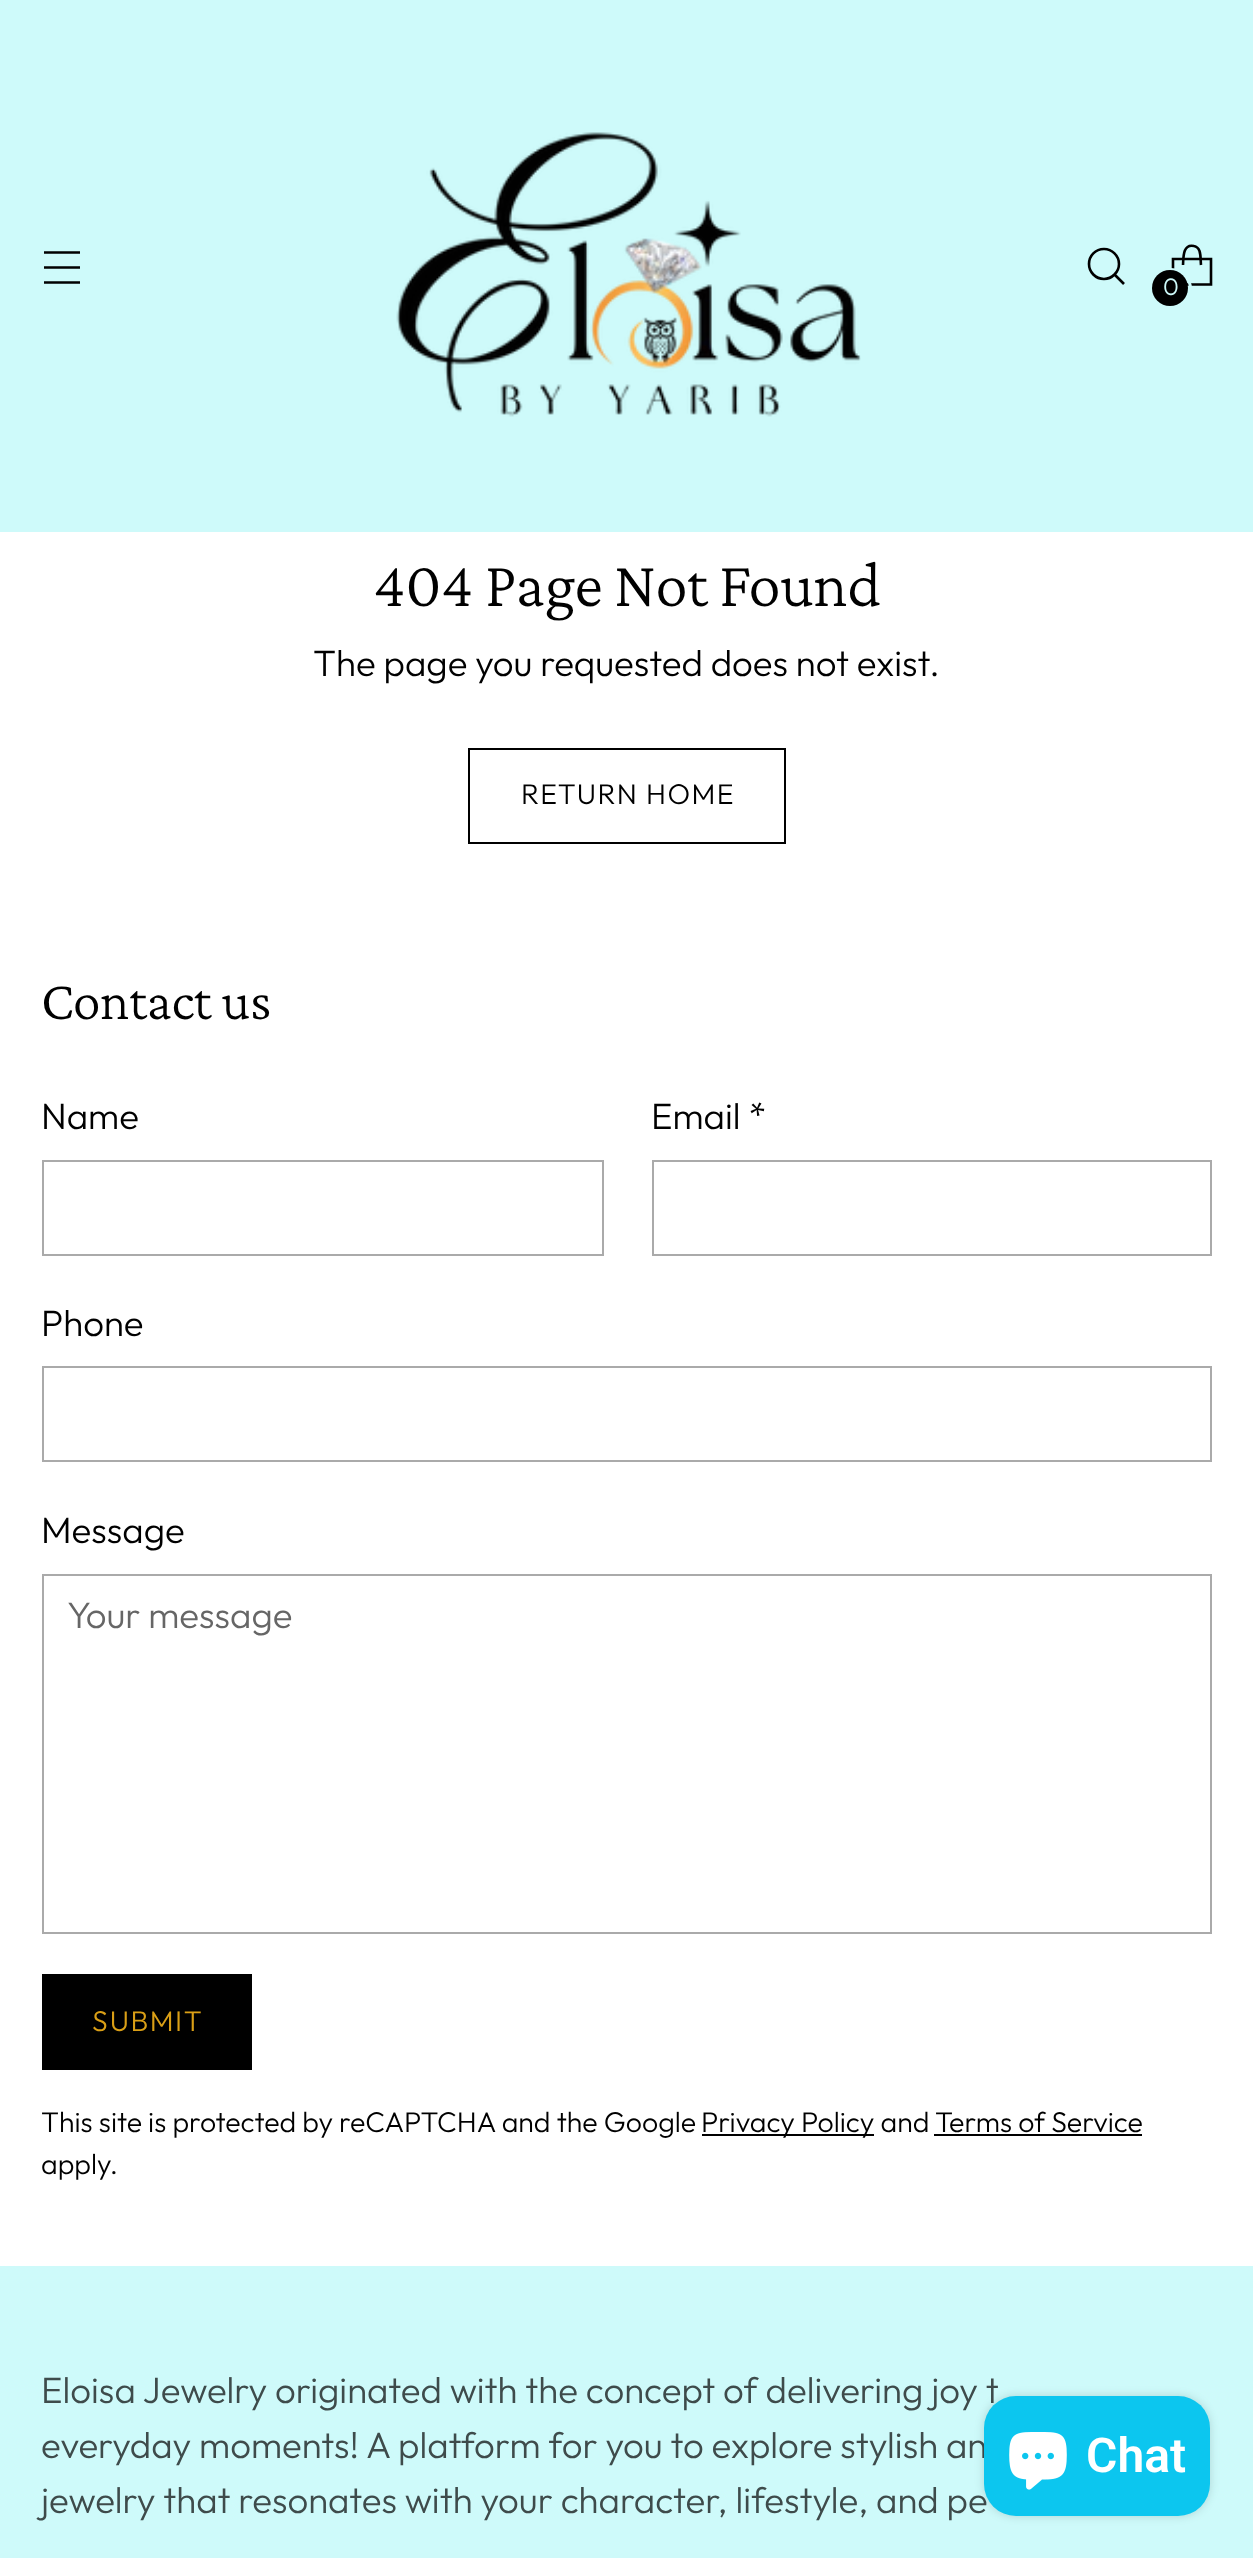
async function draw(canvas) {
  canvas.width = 1253
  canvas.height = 2558
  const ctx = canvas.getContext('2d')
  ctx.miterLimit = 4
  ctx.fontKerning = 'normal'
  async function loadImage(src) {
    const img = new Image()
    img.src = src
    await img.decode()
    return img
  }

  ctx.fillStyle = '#fff'
  ctx.fillRect(0, 0, 1253, 2558)
  ctx.fillStyle = '#cefafa'
  ctx.fillRect(0, 0, 1253, 532)
  ctx.beginPath()
  ctx.moveTo(44, 267.5)
  ctx.lineTo(80, 267.5)
  ctx.moveTo(44, 252.5)
  ctx.lineTo(80, 252.5)
  ctx.moveTo(44, 282.5)
  ctx.lineTo(80, 282.5)
  ctx.strokeStyle = '#000'
  ctx.lineWidth = 2.6
  ctx.stroke()
  ctx.drawImage(await loadImage('image0.png'), 396, 132, 465, 285)
  ctx.beginPath()
  ctx.moveTo(1104, 279)
  ctx.bezierCurveTo(1112, 279, 1119, 272, 1119, 264)
  ctx.bezierCurveTo(1119, 255.5, 1112, 249, 1104, 249)
  ctx.bezierCurveTo(1095.5, 249, 1089, 255.5, 1089, 264)
  ctx.bezierCurveTo(1089, 272, 1095.5, 279, 1104, 279)
  ctx.closePath()
  ctx.lineCap = 'round'
  ctx.stroke()
  ctx.beginPath()
  ctx.moveTo(1114.5, 274.5)
  ctx.lineTo(1124, 284)
  ctx.lineCap = 'butt'
  ctx.stroke()
  ctx.beginPath()
  ctx.moveTo(1201, 265)
  ctx.bezierCurveTo(1200.5, 260.5, 1201, 255.5, 1199.5, 251)
  ctx.bezierCurveTo(1198.5, 248.5, 1196.5, 246.5, 1194, 246)
  ctx.bezierCurveTo(1182.5, 243.5, 1183.5, 258, 1183, 265)
  ctx.lineJoin = 'bevel'
  ctx.stroke()
  ctx.beginPath()
  ctx.moveTo(1211, 284.5)
  ctx.lineTo(1211, 259)
  ctx.lineTo(1173, 259)
  ctx.lineTo(1173, 284.5)
  ctx.closePath()
  ctx.lineJoin = 'miter'
  ctx.stroke()
  ctx.beginPath()
  ctx.arc(1171, 289, 19.5, 0, 2 * Math.PI)
  ctx.strokeStyle = '#cefafa'
  ctx.lineWidth = 3
  ctx.stroke()
  ctx.fillStyle = '#000'
  ctx.beginPath()
  ctx.arc(1170, 288, 18, 0, 2 * Math.PI)
  ctx.fill()
  ctx.font = '300 24px Outfit'
  ctx.fillStyle = '#cefafa'
  ctx.fillText('0', 1163, 295)
  ctx.letterSpacing = '-0.7px'
  ctx.font = '300 65.5px Crimson Pro'
  ctx.fillStyle = '#000'
  ctx.fillText('404 Page Not Found', 373, 606)
  ctx.letterSpacing = '0px'
  ctx.font = '300 36.6px Outfit'
  ctx.fillText('The page you requested does not exist.', 313, 676)
  ctx.strokeStyle = '#000'
  ctx.lineWidth = 2
  ctx.strokeRect(469, 749, 316, 94)
  ctx.letterSpacing = '1.5px'
  ctx.font = '300 28.5px Outfit'
  ctx.fillText('RETURN HOME', 521, 804)
  ctx.letterSpacing = '-0.5px'
  ctx.font = '300 56px Crimson Pro'
  ctx.fillText('Contact us', 41, 1019)
  ctx.letterSpacing = '0px'
  ctx.font = '300 36.6px Outfit'
  ctx.fillText('Name', 41, 1129)
  ctx.strokeStyle = '#aaa'
  ctx.strokeRect(43, 1161, 560, 94)
  ctx.fillText('Email *', 651, 1129)
  ctx.strokeRect(653, 1161, 558, 94)
  ctx.fillText('Phone', 41, 1336)
  ctx.strokeRect(43, 1367, 1168, 94)
  ctx.fillText('Message', 41, 1543)
  ctx.strokeRect(43, 1575, 1168, 358)
  ctx.fillStyle = '#666'
  ctx.fillText('Your message', 67, 1628)
  ctx.save()
  ctx.beginPath()
  ctx.rect(42, 1974, 210, 96)
  ctx.clip()
  ctx.fillStyle = '#000'
  ctx.beginPath()
  ctx.moveTo(-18, 1974)
  ctx.lineTo(257, 1974)
  ctx.lineTo(312, 2070)
  ctx.lineTo(37, 2070)
  ctx.closePath()
  ctx.fill()
  ctx.restore()
  ctx.letterSpacing = '1.5px'
  ctx.font = '300 28.5px Outfit'
  ctx.fillStyle = '#da9f16'
  ctx.fillText('SUBMIT', 92, 2031)
  ctx.letterSpacing = '0px'
  ctx.fillStyle = '#000'
  ctx.fillText('This site is protected by reCAPTCHA and the Google', 41, 2132)
  ctx.fillRect(702, 2134, 172, 2)
  ctx.fillText('Privacy Policy and', 701, 2132)
  ctx.fillText('Terms of Service', 935, 2132)
  ctx.fillRect(934, 2134, 208, 2)
  ctx.fillText('apply.', 41, 2174)
  ctx.fillStyle = '#cefafa'
  ctx.fillRect(0, 2266, 1253, 292)
  ctx.font = '300 36.6px Outfit'
  ctx.fillStyle = '#3e4b4b'
  ctx.fillText('Eloisa Jewelry', 41, 2403)
  ctx.fillText('originated with the concept of delivering joy t', 275, 2403)
  ctx.fillText('everyday moments! A platform for you to explore stylish an', 41, 2458)
  ctx.fillText('jewelry that resonates with your character, lifestyle, and pe', 41, 2513)
  ctx.fillStyle = '#00000026'
  ctx.filter = 'blur(5px)'
  ctx.beginPath()
  ctx.roundRect(984, 2396, 226, 120, 32)
  ctx.fill()
  ctx.filter = 'none'
  ctx.fillStyle = '#0cc6ef'
  ctx.beginPath()
  ctx.roundRect(984, 2396, 226, 120, 32)
  ctx.fill()
  ctx.drawImage(await loadImage('image1.png'), 1009, 2432, 58, 58)
  ctx.font = '600 48px Roboto'
  ctx.fillStyle = '#fff'
  ctx.fillText('Chat', 1086, 2472)
}

draw(document.querySelector('canvas'))
